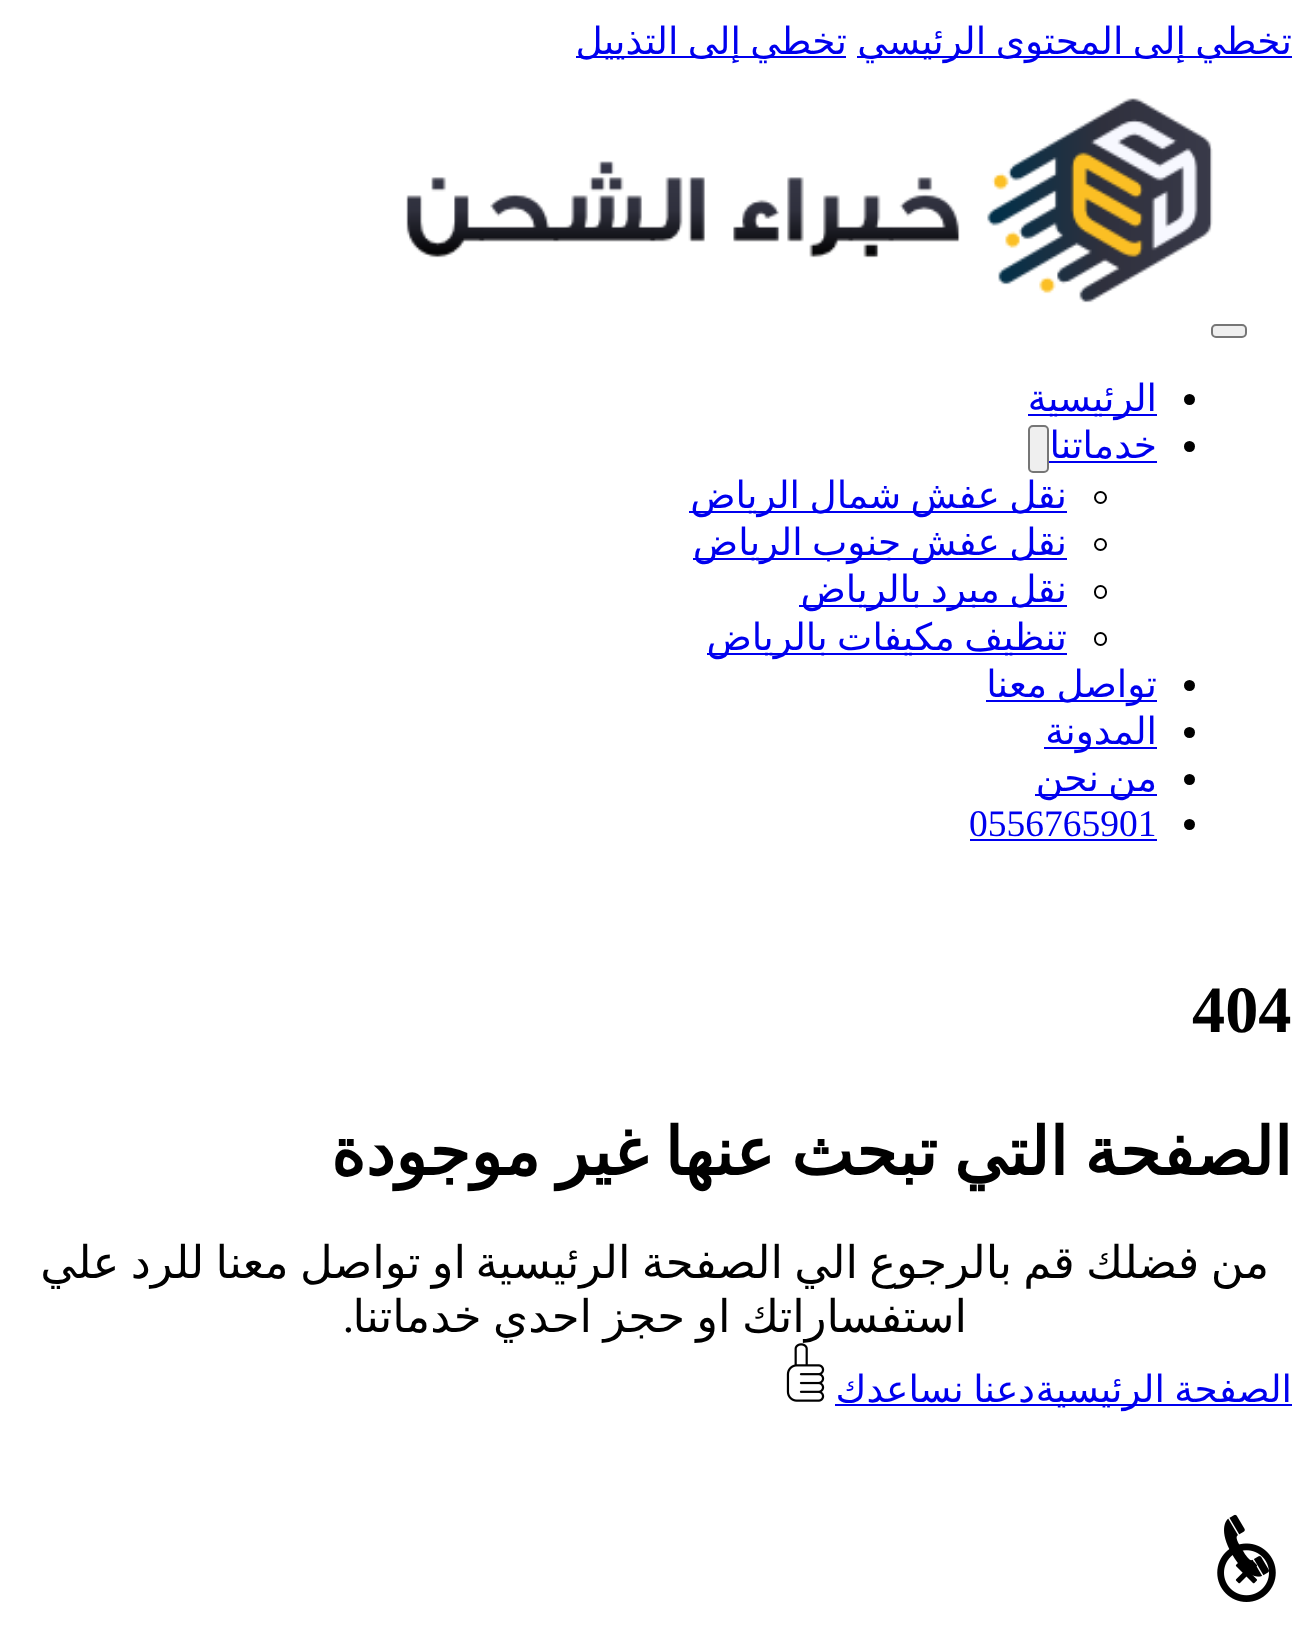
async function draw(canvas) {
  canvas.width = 1308
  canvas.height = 1635
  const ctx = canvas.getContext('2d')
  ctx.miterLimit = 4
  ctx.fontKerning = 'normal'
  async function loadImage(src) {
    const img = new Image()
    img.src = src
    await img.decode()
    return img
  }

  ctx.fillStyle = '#fff'
  ctx.fillRect(0, 0, 1308, 1635)
  ctx.fillStyle = '#00e'
  ctx.fillRect(857, 56, 435, 2)
  ctx.wordSpacing = '-2.5px'
  ctx.direction = 'rtl'
  ctx.font = '37.5px DejaVu Sans'
  ctx.fillText('تخطي إلى المحتوى الرئيسي', 1292, 54)
  ctx.fillRect(576, 56, 270, 2)
  ctx.fillText('تخطي إلى التذييل', 847, 54)
  ctx.drawImage(await loadImage('image0.png'), 406, 98, 807, 205)
  ctx.fillStyle = '#efefef'
  ctx.beginPath()
  ctx.roundRect(1212, 325, 34, 12, 4)
  ctx.fill()
  ctx.strokeStyle = '#767676'
  ctx.lineWidth = 2
  ctx.stroke()
  ctx.fillStyle = '#000'
  ctx.beginPath()
  ctx.arc(1189.5, 399.5, 5.5, 0, 2 * Math.PI)
  ctx.fill()
  ctx.fillStyle = '#00e'
  ctx.fillRect(1028, 414, 129, 2)
  ctx.wordSpacing = '0px'
  ctx.fillText('الرئيسية', 1157, 411)
  ctx.fillStyle = '#000'
  ctx.beginPath()
  ctx.arc(1189.5, 446.5, 5.5, 0, 2 * Math.PI)
  ctx.fill()
  ctx.fillStyle = '#00e'
  ctx.fillText('خدماتنا', 1157, 458)
  ctx.fillRect(1049, 461, 108, 2)
  ctx.fillStyle = '#efefef'
  ctx.beginPath()
  ctx.roundRect(1029, 426, 19, 46, 4)
  ctx.fill()
  ctx.stroke()
  ctx.beginPath()
  ctx.arc(1100.5, 497.5, 5.5, 0, 2 * Math.PI)
  ctx.strokeStyle = '#000'
  ctx.stroke()
  ctx.fillStyle = '#00e'
  ctx.fillRect(689, 511, 378, 2)
  ctx.wordSpacing = '-2.5px'
  ctx.fillText('نقل عفش شمال الرياض', 1067, 508)
  ctx.beginPath()
  ctx.arc(1100.5, 544.5, 5.5, 0, 2 * Math.PI)
  ctx.stroke()
  ctx.fillRect(693, 558, 374, 2)
  ctx.fillText('نقل عفش جنوب الرياض', 1067, 555)
  ctx.beginPath()
  ctx.roundRect(1095, 586, 11, 12, 5.5)
  ctx.stroke()
  ctx.fillRect(799, 605, 268, 2)
  ctx.fillText('نقل مبرد بالرياض', 1067, 602)
  ctx.beginPath()
  ctx.roundRect(1095, 633, 11, 12, 5.5)
  ctx.stroke()
  ctx.fillRect(707, 653, 360, 2)
  ctx.fillText('تنظيف مكيفات بالرياض', 1067, 650)
  ctx.fillStyle = '#000'
  ctx.beginPath()
  ctx.arc(1189.5, 685.5, 5.5, 0, 2 * Math.PI)
  ctx.fill()
  ctx.fillStyle = '#00e'
  ctx.fillRect(986, 700, 171, 2)
  ctx.fillText('تواصل معنا', 1157, 697)
  ctx.fillStyle = '#000'
  ctx.beginPath()
  ctx.arc(1189.5, 732.5, 5.5, 0, 2 * Math.PI)
  ctx.fill()
  ctx.fillStyle = '#00e'
  ctx.fillRect(1044, 747, 113, 2)
  ctx.wordSpacing = '0px'
  ctx.fillText('المدونة', 1157, 744)
  ctx.fillStyle = '#000'
  ctx.beginPath()
  ctx.arc(1189.5, 779.5, 5.5, 0, 2 * Math.PI)
  ctx.fill()
  ctx.fillStyle = '#00e'
  ctx.fillRect(1035, 794, 122, 2)
  ctx.wordSpacing = '-2.5px'
  ctx.fillText('من نحن', 1157, 791)
  ctx.fillStyle = '#000'
  ctx.beginPath()
  ctx.arc(1189.5, 824.5, 5.5, 0, 2 * Math.PI)
  ctx.fill()
  ctx.wordSpacing = '0px'
  ctx.direction = 'ltr'
  ctx.font = '37.5px Liberation Serif'
  ctx.fillStyle = '#00e'
  ctx.fillText('0556765901', 969, 836)
  ctx.fillRect(970, 839, 187, 2)
  ctx.font = 'bold 66.25px Liberation Serif'
  ctx.fillStyle = '#000'
  ctx.fillText('404', 1192, 1032)
  ctx.wordSpacing = '-4.5px'
  ctx.direction = 'rtl'
  ctx.font = 'bold 66.25px DejaVu Sans'
  ctx.fillText('الصفحة التي تبحث عنها غير موجودة', 1292, 1175)
  ctx.wordSpacing = '-3px'
  ctx.font = '45px DejaVu Sans'
  ctx.fillText('من فضلك قم بالرجوع الي الصفحة الرئيسية', 1269, 1278)
  ctx.fillText('او تواصل معنا للرد علي', 466, 1278)
  ctx.fillText('استفساراتك او حجز احدي خدماتنا', 967, 1332)
  ctx.wordSpacing = '0px'
  ctx.font = '45px Liberation Serif'
  ctx.fillText('.', 354, 1332)
  ctx.fillStyle = '#00e'
  ctx.fillRect(835, 1404, 457, 2)
  ctx.wordSpacing = '-2.5px'
  ctx.font = '37.5px DejaVu Sans'
  ctx.fillText('الصفحة الرئيسية', 1292, 1402)
  ctx.fillText('دعنا نساعدك', 1035, 1402)
  ctx.drawImage(await loadImage('image1.png'), 786, 1343, 39, 59)
  ctx.drawImage(await loadImage('image3.png'), 1217, 1543, 59, 59)
  ctx.drawImage(await loadImage('image2.png'), 1224, 1514, 45, 63)
}

draw(document.querySelector('canvas'))
